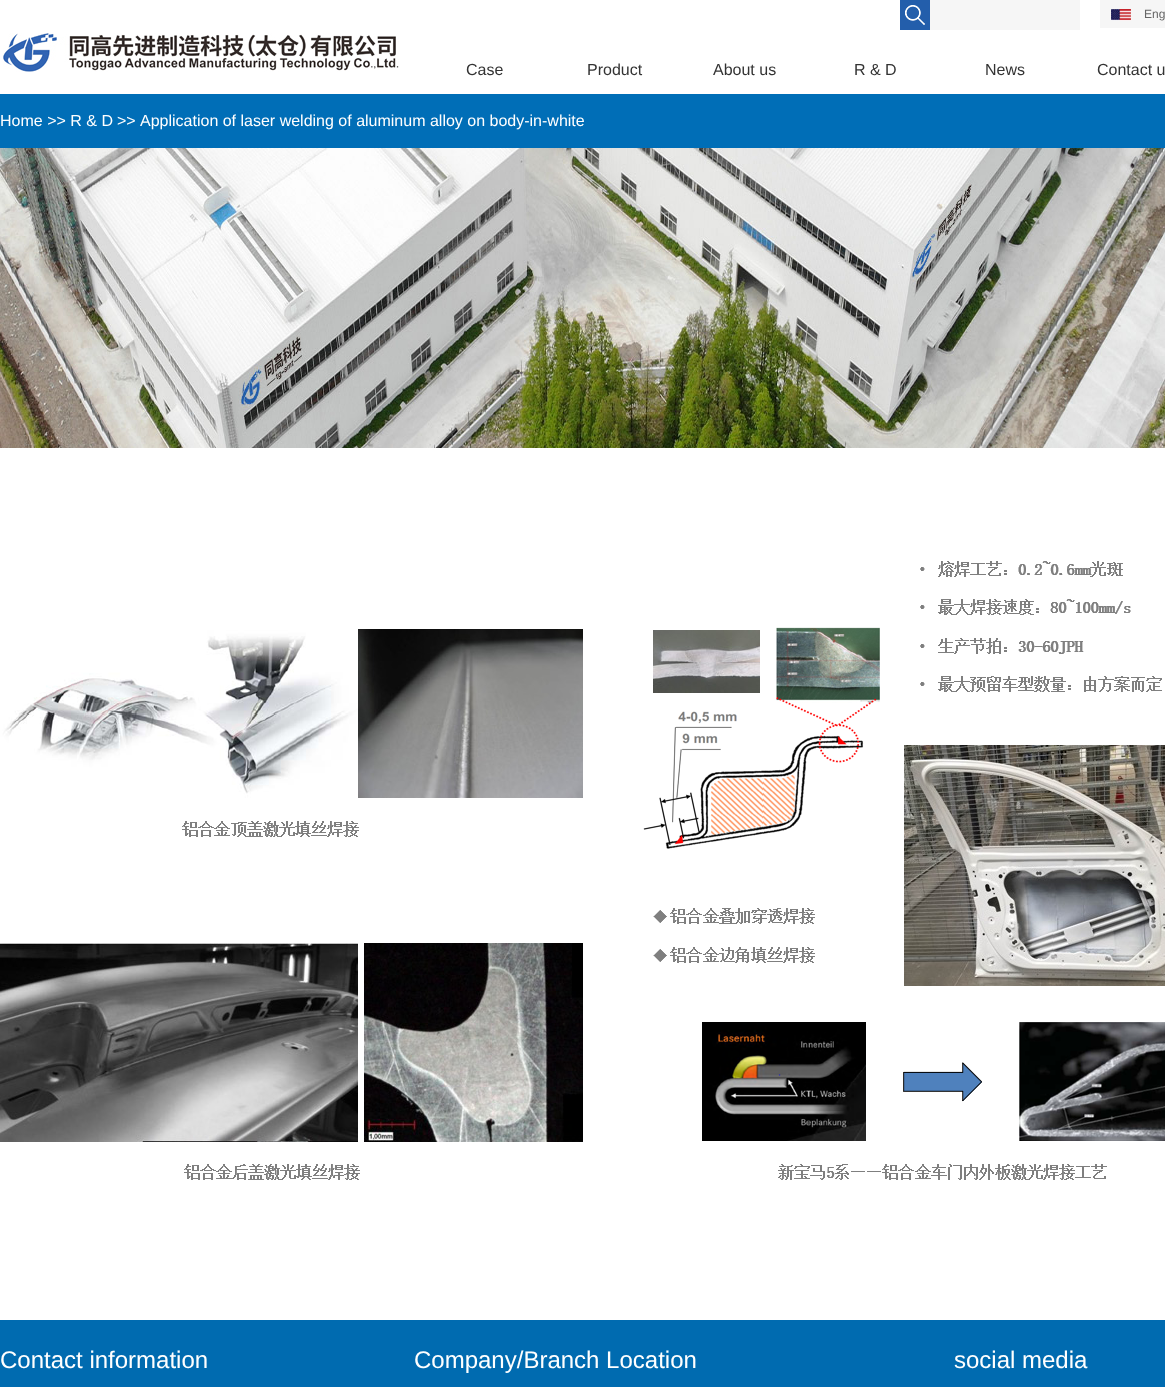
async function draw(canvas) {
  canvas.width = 1165
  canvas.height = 1387
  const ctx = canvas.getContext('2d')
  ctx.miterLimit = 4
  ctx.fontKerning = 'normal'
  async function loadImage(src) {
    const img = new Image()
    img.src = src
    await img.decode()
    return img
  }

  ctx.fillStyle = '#fff'
  ctx.fillRect(0, 0, 1165, 1387)
  ctx.drawImage(await loadImage('image0.png'), 3, 33, 396, 39)
  ctx.drawImage(await loadImage('image1.png'), 900, 0, 180, 30)
  ctx.fillStyle = '#f6f6f6'
  ctx.fillRect(1100, 0, 65, 28)
  ctx.drawImage(await loadImage('image2.png'), 1111, 9, 20, 12)
  ctx.font = '12px Liberation Sans'
  ctx.fillStyle = '#666'
  ctx.fillText('Eng', 1144, 18)
  ctx.font = '16px Liberation Sans'
  ctx.fillStyle = '#333'
  ctx.fillText('Case', 466, 75)
  ctx.fillText('Product', 587, 75)
  ctx.fillText('About us', 713, 75)
  ctx.fillText('R & D', 854, 75)
  ctx.fillText('News', 985, 75)
  ctx.fillText('Contact u', 1097, 75)
  ctx.fillStyle = '#006eb7'
  ctx.fillRect(0, 94, 1165, 54)
  ctx.fillStyle = '#fff'
  ctx.fillText('Home >> R & D', 0, 126)
  ctx.fillText('>>', 117, 126)
  ctx.fillText('Application of laser welding of aluminum alloy on body-in-white', 140, 126)
  ctx.drawImage(await loadImage('image3.png'), 0, 148, 1165, 300)
  ctx.drawImage(await loadImage('image4.png'), 0, 561, 1165, 619)
  ctx.fillStyle = '#006bb0'
  ctx.fillRect(0, 1320, 1165, 67)
  ctx.font = '24px Liberation Sans'
  ctx.fillStyle = '#fff'
  ctx.fillText('Contact information', 0, 1368)
  ctx.fillText('Company/Branch Location', 414, 1368)
  ctx.fillText('social media', 954, 1368)
}

draw(document.querySelector('canvas'))
